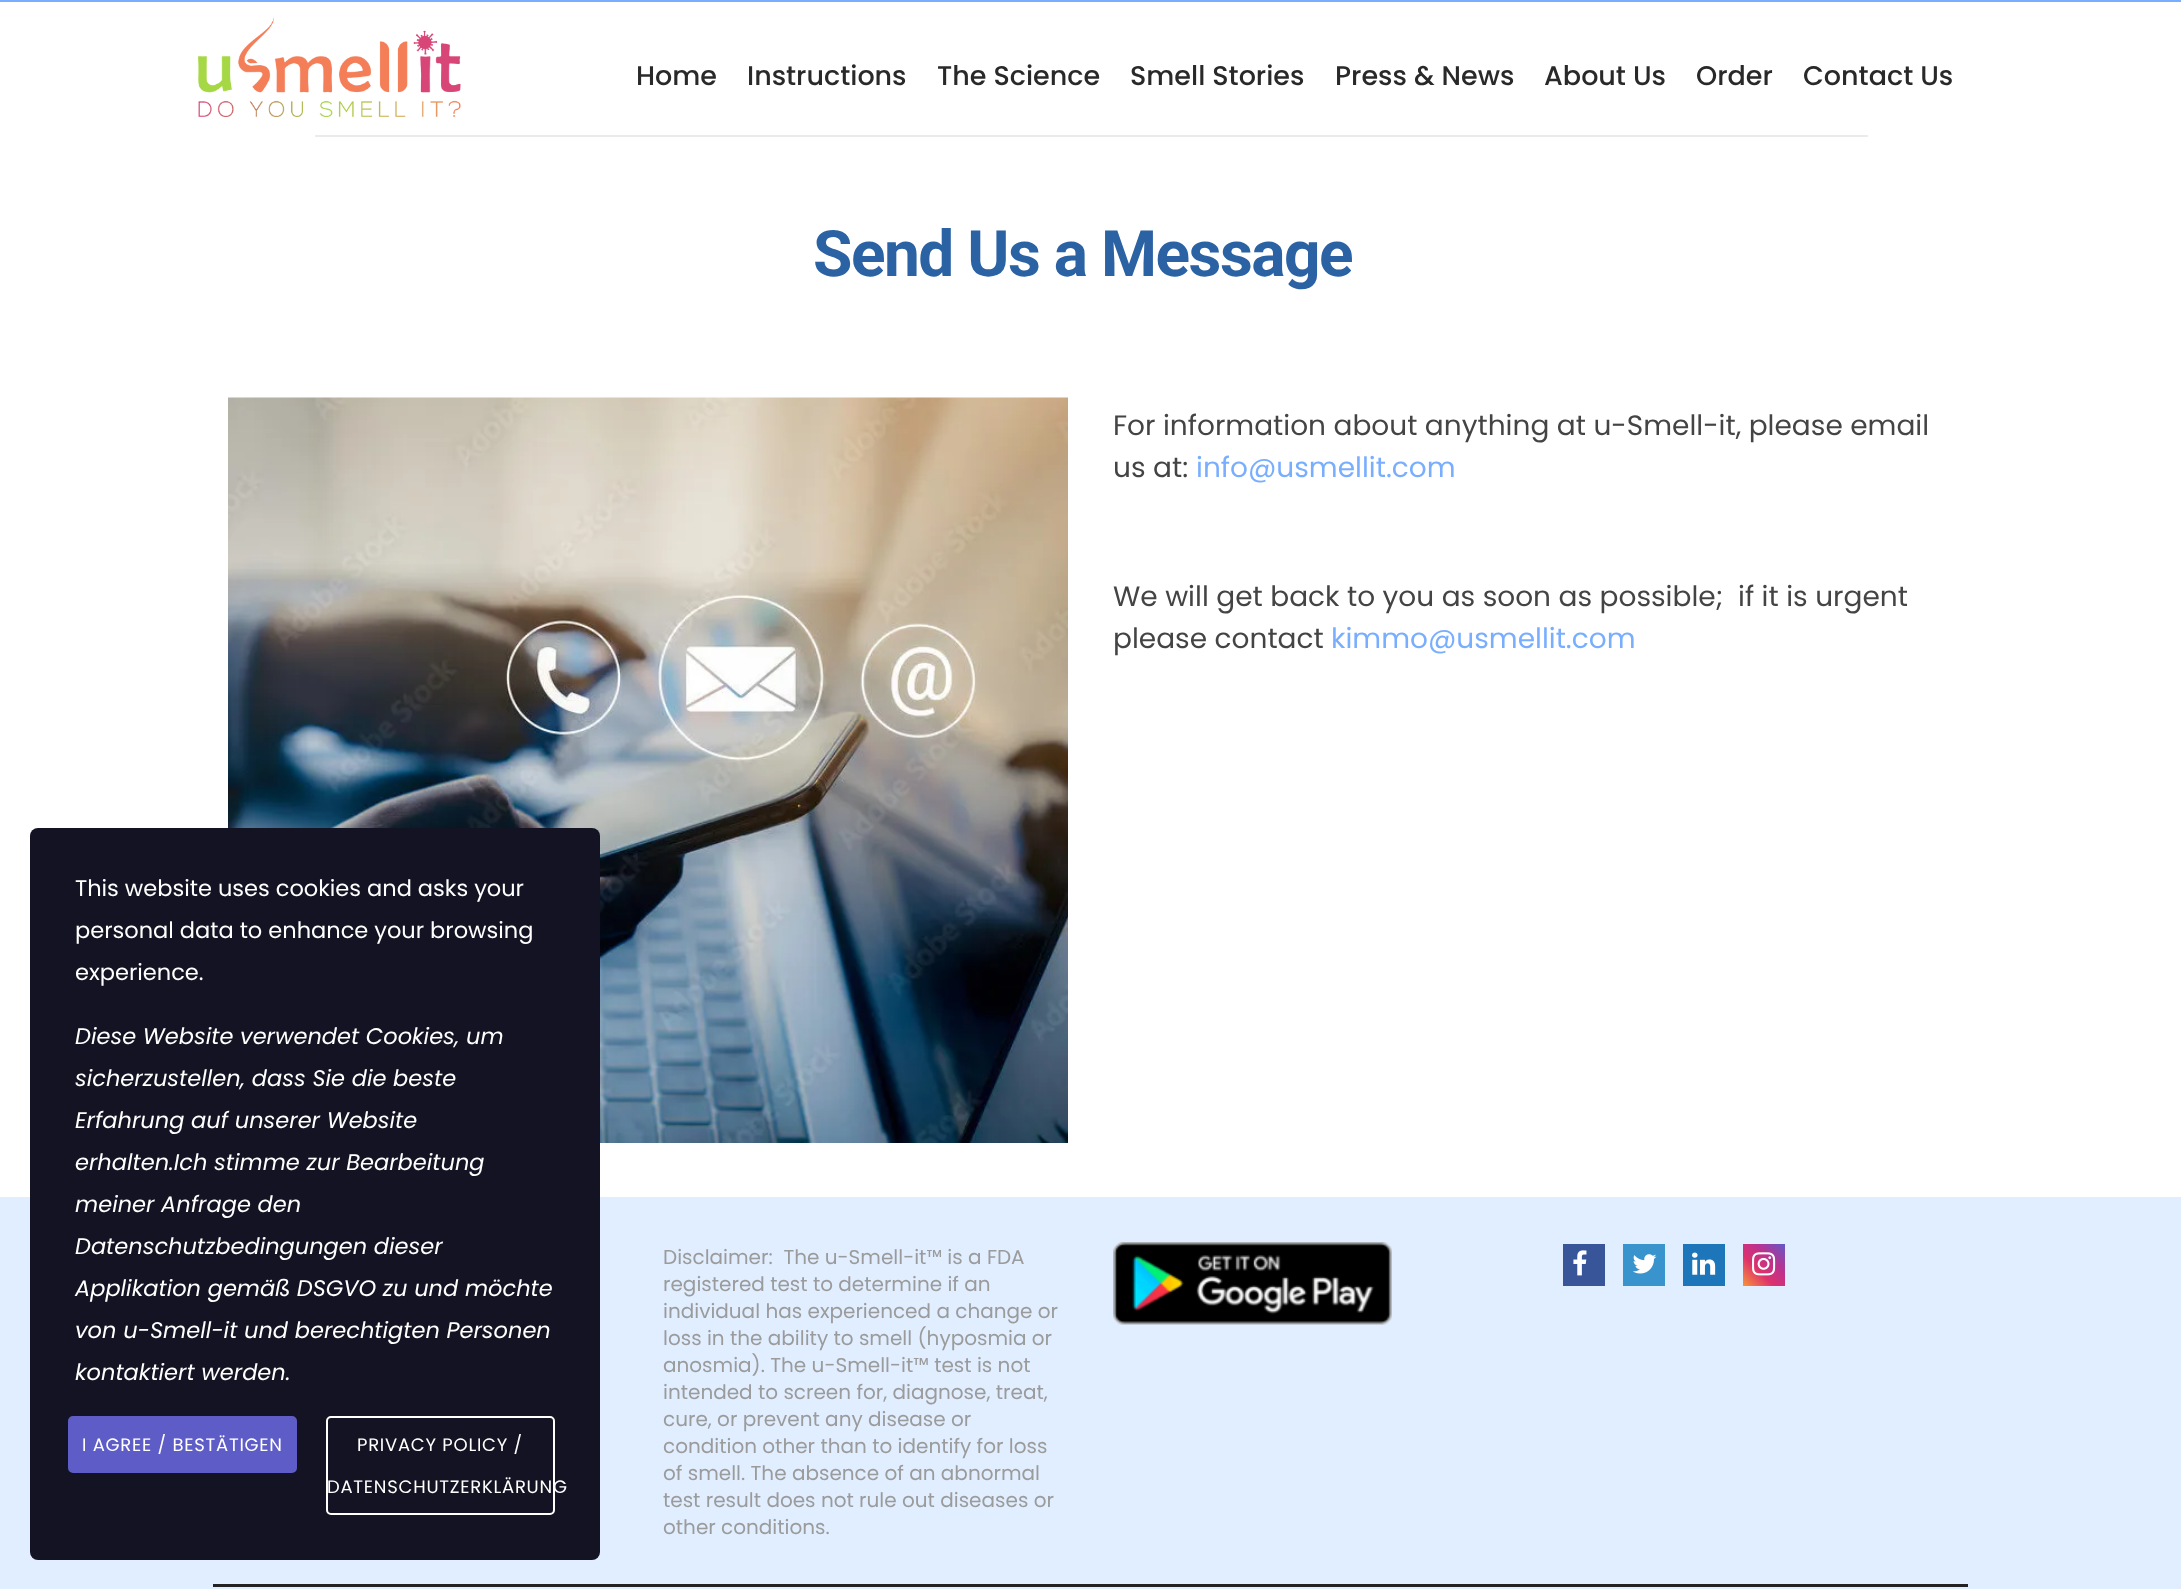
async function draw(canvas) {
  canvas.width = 2181
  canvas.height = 1589
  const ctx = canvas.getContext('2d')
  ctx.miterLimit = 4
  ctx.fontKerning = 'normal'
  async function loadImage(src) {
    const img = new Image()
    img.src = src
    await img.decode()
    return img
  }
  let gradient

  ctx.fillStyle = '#fff'
  ctx.fillRect(0, 0, 2181, 1589)
  ctx.fillStyle = '#79aeff'
  ctx.fillRect(0, 0, 2181, 2)
  ctx.drawImage(await loadImage('image0.png'), 198, 16, 263, 101)
  ctx.font = '500 27px Poppins'
  ctx.fillStyle = '#292929'
  ctx.fillText('Home', 636, 85)
  ctx.fillText('Instructions', 747, 85)
  ctx.fillText('The Science', 937, 85)
  ctx.fillText('Smell Stories', 1130, 85)
  ctx.fillText('Press & News', 1335, 85)
  ctx.fillText('About Us', 1544, 85)
  ctx.fillText('Order', 1696, 85)
  ctx.fillText('Contact Us', 1803, 85)
  ctx.fillStyle = '#ebebeb'
  ctx.fillRect(315, 135, 1553, 2)
  ctx.letterSpacing = '-1.5px'
  ctx.font = 'bold 64px Roboto'
  ctx.fillStyle = '#2a62a3'
  ctx.fillText('Send Us a Message', 813, 276)
  ctx.drawImage(await loadImage('image1.png'), 228, 397, 840, 746)
  ctx.letterSpacing = '0px'
  ctx.font = '28px Poppins'
  ctx.fillStyle = '#444'
  ctx.fillText('For information about anything at u-Smell-it, please email', 1113, 435)
  ctx.fillText('us at:', 1113, 477)
  ctx.fillStyle = '#79aeff'
  ctx.fillText('info@usmellit.com', 1196, 477)
  ctx.fillStyle = '#444'
  ctx.fillText('We will get back to you as soon as possible;  if it is urgent', 1113, 606)
  ctx.fillText('please contact', 1113, 648)
  ctx.fillStyle = '#79aeff'
  ctx.fillText('kimmo@usmellit.com', 1331, 648)
  ctx.fillStyle = '#e0eeff'
  ctx.fillRect(0, 1197, 2181, 392)
  ctx.fillStyle = '#131323'
  ctx.beginPath()
  ctx.roundRect(30, 828, 570, 732, 8)
  ctx.fill()
  ctx.font = '22.5px Poppins'
  ctx.fillStyle = '#fff'
  ctx.fillText('This website uses cookies and asks your', 75, 896)
  ctx.fillText('personal data to enhance your browsing', 75, 938)
  ctx.fillText('experience.', 75, 980)
  ctx.font = 'italic 22.5px Poppins'
  ctx.fillText('Diese Website verwendet Cookies, um', 75, 1044)
  ctx.fillText('sicherzustellen, dass Sie die beste', 75, 1086)
  ctx.fillText('Erfahrung auf unserer Website', 75, 1128)
  ctx.fillText('erhalten.Ich stimme zur Bearbeitung', 75, 1170)
  ctx.fillText('meiner Anfrage den', 75, 1212)
  ctx.fillText('Datenschutzbedingungen dieser', 75, 1254)
  ctx.fillText('Applikation gemäß DSGVO zu und möchte', 75, 1296)
  ctx.fillText('von u-Smell-it und berechtigten Personen', 75, 1338)
  ctx.fillText('kontaktiert werden.', 75, 1380)
  ctx.fillStyle = '#5e5cc7'
  ctx.beginPath()
  ctx.roundRect(69, 1417, 227, 55, 4)
  ctx.fill()
  ctx.strokeStyle = '#5e5cc7'
  ctx.lineWidth = 2
  ctx.stroke()
  ctx.letterSpacing = '0.75px'
  ctx.font = '18px Poppins'
  ctx.fillStyle = '#fff'
  ctx.fillText('I AGREE / BESTÄTIGEN', 82, 1451)
  ctx.beginPath()
  ctx.roundRect(327, 1417, 227, 97, 4)
  ctx.strokeStyle = '#fff'
  ctx.stroke()
  ctx.fillText('PRIVACY POLICY /', 357, 1451)
  ctx.fillText('DATENSCHUTZERKLÄRUNG', 327, 1493)
  ctx.letterSpacing = '0px'
  ctx.font = '20px Poppins'
  ctx.fillStyle = '#9b9b9b'
  ctx.fillText('Disclaimer:  The u-Smell-it™ is a FDA', 663, 1264)
  ctx.fillText('registered test to determine if an', 663, 1291)
  ctx.fillText('individual has experienced a change or', 663, 1318)
  ctx.fillText('loss in the ability to smell (hyposmia or', 663, 1345)
  ctx.fillText('anosmia). The u-Smell-it™ test is not', 663, 1372)
  ctx.fillText('intended to screen for, diagnose, treat,', 663, 1399)
  ctx.fillText('cure, or prevent any disease or', 663, 1426)
  ctx.fillText('condition other than to identify for loss', 663, 1453)
  ctx.fillText('of smell. The absence of an abnormal', 663, 1480)
  ctx.fillText('test result does not rule out diseases or', 663, 1507)
  ctx.fillText('other conditions.', 663, 1534)
  ctx.drawImage(await loadImage('image2.png'), 1113, 1242, 279, 83)
  ctx.fillStyle = '#385599'
  ctx.fillRect(1563, 1244, 42, 42)
  ctx.drawImage(await loadImage('image3.png'), 1573, 1250, 14, 26)
  ctx.fillStyle = '#3993cc'
  ctx.fillRect(1623, 1244, 42, 42)
  ctx.drawImage(await loadImage('image4.png'), 1632, 1254, 25, 20)
  ctx.fillStyle = '#1d76b9'
  ctx.fillRect(1683, 1244, 42, 42)
  ctx.drawImage(await loadImage('image5.png'), 1692, 1252, 24, 23)
  gradient = ctx.createLinearGradient(1743, 1286, 1785, 1244)
  gradient.addColorStop(0, '#f99537')
  gradient.addColorStop(0.37, '#dd316d')
  gradient.addColorStop(0.65, '#bb328e')
  gradient.addColorStop(1, '#6258c8')
  ctx.fillStyle = gradient
  ctx.fillRect(1743, 1244, 42, 42)
  ctx.drawImage(await loadImage('image6.png'), 1752, 1252, 24, 24)
  ctx.fillStyle = '#222'
  ctx.fillRect(213, 1584, 1755, 3)
}

draw(document.querySelector('canvas'))
